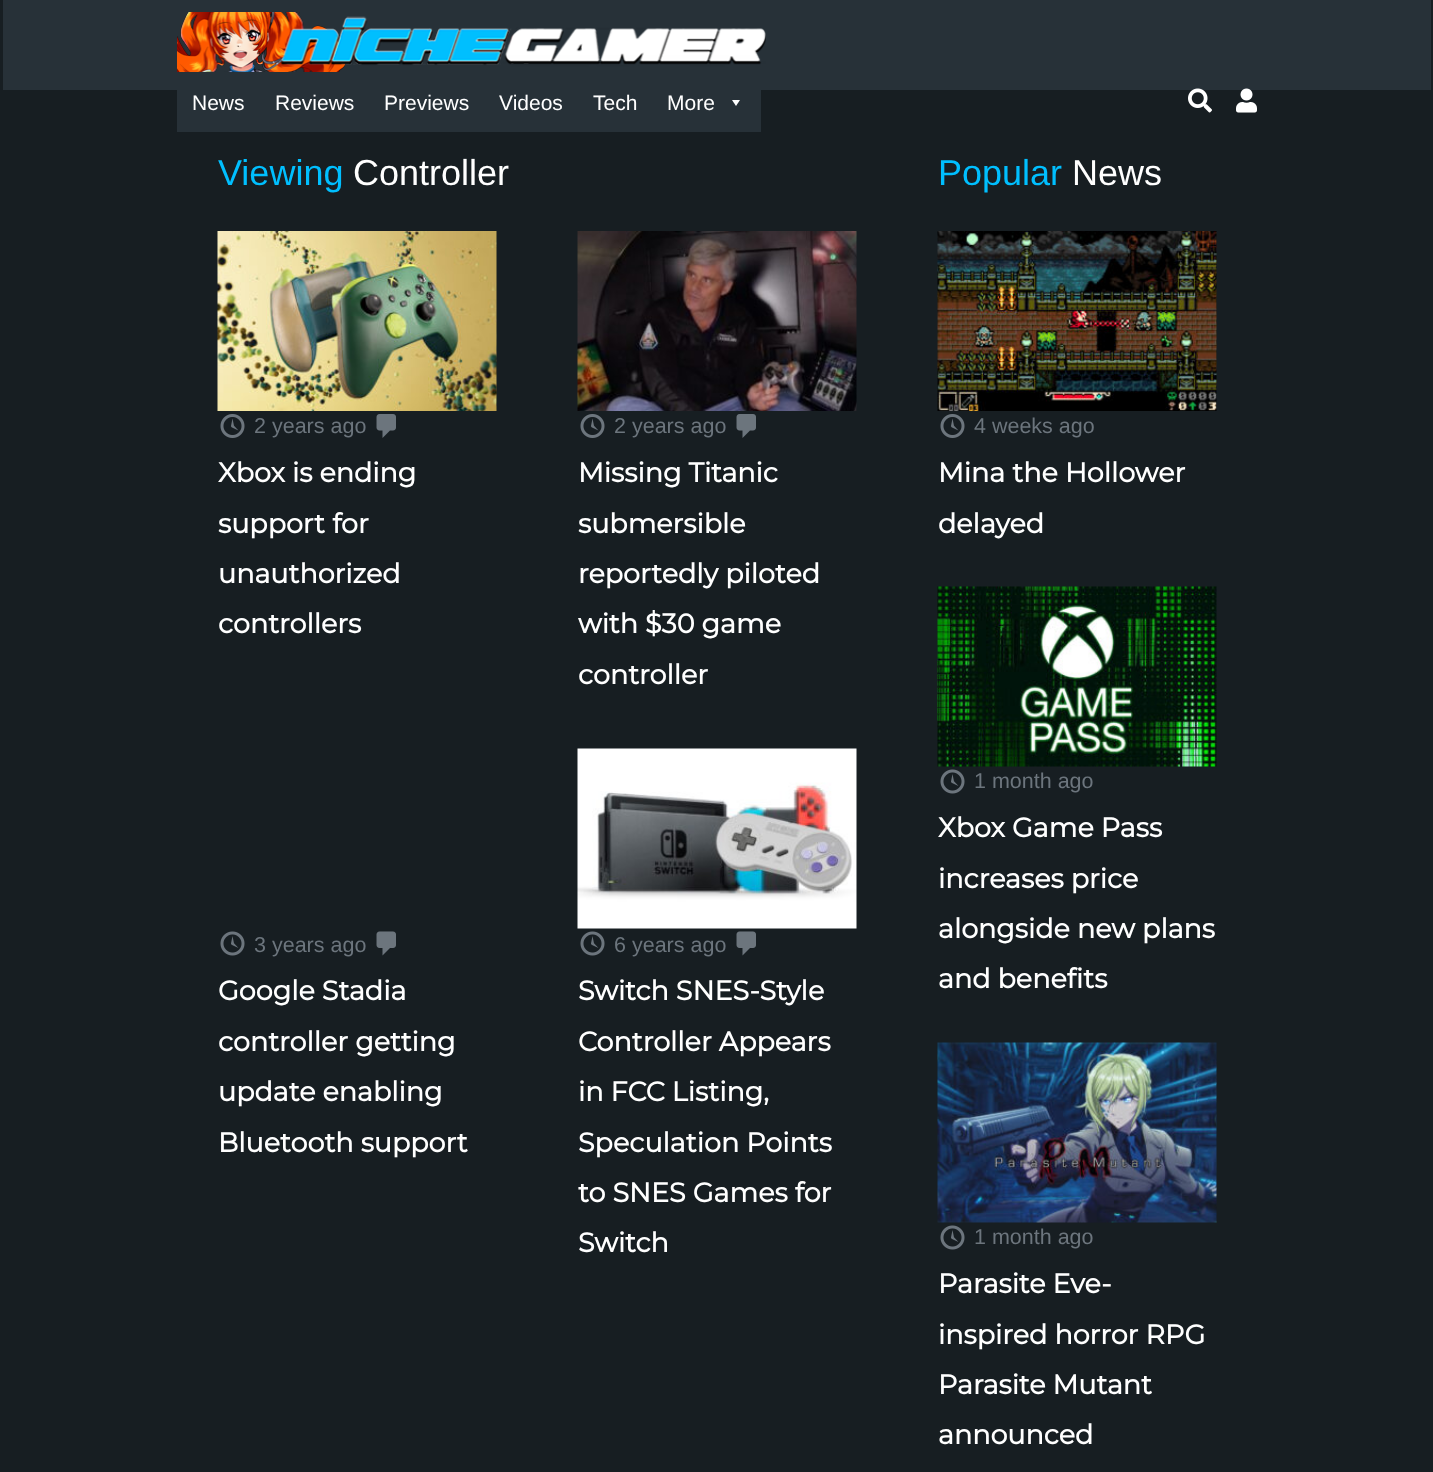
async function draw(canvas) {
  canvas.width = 1433
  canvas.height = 1472
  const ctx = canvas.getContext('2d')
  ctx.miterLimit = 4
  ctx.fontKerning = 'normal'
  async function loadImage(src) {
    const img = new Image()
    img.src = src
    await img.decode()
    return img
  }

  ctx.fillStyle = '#171e22'
  ctx.fillRect(0, 0, 1433, 1472)
  ctx.fillStyle = '#273138'
  ctx.fillRect(3, 0, 1428, 90)
  ctx.drawImage(await loadImage('image0.png'), 177, 12, 589, 60)
  ctx.fillRect(177, 90, 584, 42)
  ctx.font = '21px Liberation Sans'
  ctx.fillStyle = '#fff'
  ctx.fillText('News', 192, 110)
  ctx.fillText('Reviews', 275, 110)
  ctx.fillText('Previews', 384, 110)
  ctx.fillText('Videos', 499, 110)
  ctx.fillText('Tech', 593, 110)
  ctx.fillText('More', 667, 110)
  ctx.beginPath()
  ctx.moveTo(740, 100)
  ctx.lineTo(736, 106)
  ctx.lineTo(732, 100)
  ctx.closePath()
  ctx.fill()
  ctx.drawImage(await loadImage('image1.png'), 1188, 88, 24, 25)
  ctx.drawImage(await loadImage('image2.png'), 1236, 88, 21, 25)
  ctx.font = '36px Liberation Sans'
  ctx.fillStyle = '#00bfff'
  ctx.fillText('Viewing', 218, 185)
  ctx.fillStyle = '#fff'
  ctx.fillText('Controller', 353, 185)
  ctx.drawImage(await loadImage('image3.png'), 217, 231, 280, 180)
  ctx.drawImage(await loadImage('image4.png'), 220, 414, 25, 24)
  ctx.font = '21.5px Liberation Sans'
  ctx.fillStyle = '#6c757d'
  ctx.fillText('2 years ago', 254, 433)
  ctx.drawImage(await loadImage('image5.png'), 376, 414, 20, 24)
  ctx.font = 'bold 27px Montserrat'
  ctx.fillStyle = '#fff'
  ctx.fillText('Xbox is ending', 218, 482)
  ctx.fillText('support for', 218, 533)
  ctx.fillText('unauthorized', 218, 583)
  ctx.fillText('controllers', 218, 633)
  ctx.drawImage(await loadImage('image6.png'), 577, 231, 280, 180)
  ctx.drawImage(await loadImage('image4.png'), 580, 414, 25, 24)
  ctx.font = '21.5px Liberation Sans'
  ctx.fillStyle = '#6c757d'
  ctx.fillText('2 years ago', 614, 433)
  ctx.drawImage(await loadImage('image5.png'), 736, 414, 20, 24)
  ctx.font = 'bold 27px Montserrat'
  ctx.fillStyle = '#fff'
  ctx.fillText('Missing Titanic', 578, 482)
  ctx.fillText('submersible', 578, 533)
  ctx.fillText('reportedly piloted', 578, 583)
  ctx.fillText('with $30 game', 578, 633)
  ctx.fillText('controller', 578, 684)
  ctx.drawImage(await loadImage('image7.png'), 220, 931, 25, 25)
  ctx.font = '21.5px Liberation Sans'
  ctx.fillStyle = '#6c757d'
  ctx.fillText('3 years ago', 254, 952)
  ctx.drawImage(await loadImage('image8.png'), 376, 931, 20, 25)
  ctx.font = 'bold 27px Montserrat'
  ctx.fillStyle = '#fff'
  ctx.fillText('Google Stadia', 218, 1000)
  ctx.fillText('controller getting', 218, 1051)
  ctx.fillText('update enabling', 218, 1101)
  ctx.fillText('Bluetooth support', 218, 1152)
  ctx.drawImage(await loadImage('image9.png'), 577, 748, 280, 181)
  ctx.drawImage(await loadImage('image7.png'), 580, 931, 25, 25)
  ctx.font = '21.5px Liberation Sans'
  ctx.fillStyle = '#6c757d'
  ctx.fillText('6 years ago', 614, 952)
  ctx.drawImage(await loadImage('image8.png'), 736, 931, 20, 25)
  ctx.font = 'bold 27px Montserrat'
  ctx.fillStyle = '#fff'
  ctx.fillText('Switch SNES-Style', 578, 1000)
  ctx.fillText('Controller Appears', 578, 1051)
  ctx.fillText('in FCC Listing,', 578, 1101)
  ctx.fillText('Speculation Points', 578, 1152)
  ctx.fillText('to SNES Games for', 578, 1202)
  ctx.fillText('Switch', 578, 1252)
  ctx.font = '36px Liberation Sans'
  ctx.fillStyle = '#00bfff'
  ctx.fillText('Popular', 938, 185)
  ctx.fillStyle = '#fff'
  ctx.fillText('News', 1072, 185)
  ctx.drawImage(await loadImage('image10.png'), 937, 231, 280, 180)
  ctx.drawImage(await loadImage('image4.png'), 940, 414, 25, 24)
  ctx.font = '21.5px Liberation Sans'
  ctx.fillStyle = '#6c757d'
  ctx.fillText('4 weeks ago', 974, 433)
  ctx.font = 'bold 27px Montserrat'
  ctx.fillStyle = '#fff'
  ctx.fillText('Mina the Hollower', 938, 482)
  ctx.fillText('delayed', 938, 533)
  ctx.drawImage(await loadImage('image11.png'), 937, 586, 280, 181)
  ctx.drawImage(await loadImage('image7.png'), 940, 769, 25, 25)
  ctx.font = '21.5px Liberation Sans'
  ctx.fillStyle = '#6c757d'
  ctx.fillText('1 month ago', 974, 788)
  ctx.font = 'bold 27px Montserrat'
  ctx.fillStyle = '#fff'
  ctx.fillText('Xbox Game Pass', 938, 837)
  ctx.fillText('increases price', 938, 888)
  ctx.fillText('alongside new plans', 938, 938)
  ctx.fillText('and benefits', 938, 988)
  ctx.drawImage(await loadImage('image12.png'), 937, 1042, 280, 181)
  ctx.drawImage(await loadImage('image7.png'), 940, 1225, 25, 25)
  ctx.font = '21.5px Liberation Sans'
  ctx.fillStyle = '#6c757d'
  ctx.fillText('1 month ago', 974, 1244)
  ctx.font = 'bold 27px Montserrat'
  ctx.fillStyle = '#fff'
  ctx.fillText('Parasite Eve-', 938, 1293)
  ctx.fillText('inspired horror RPG', 938, 1344)
  ctx.fillText('Parasite Mutant', 938, 1394)
  ctx.fillText('announced', 938, 1444)
}

draw(document.querySelector('canvas'))
